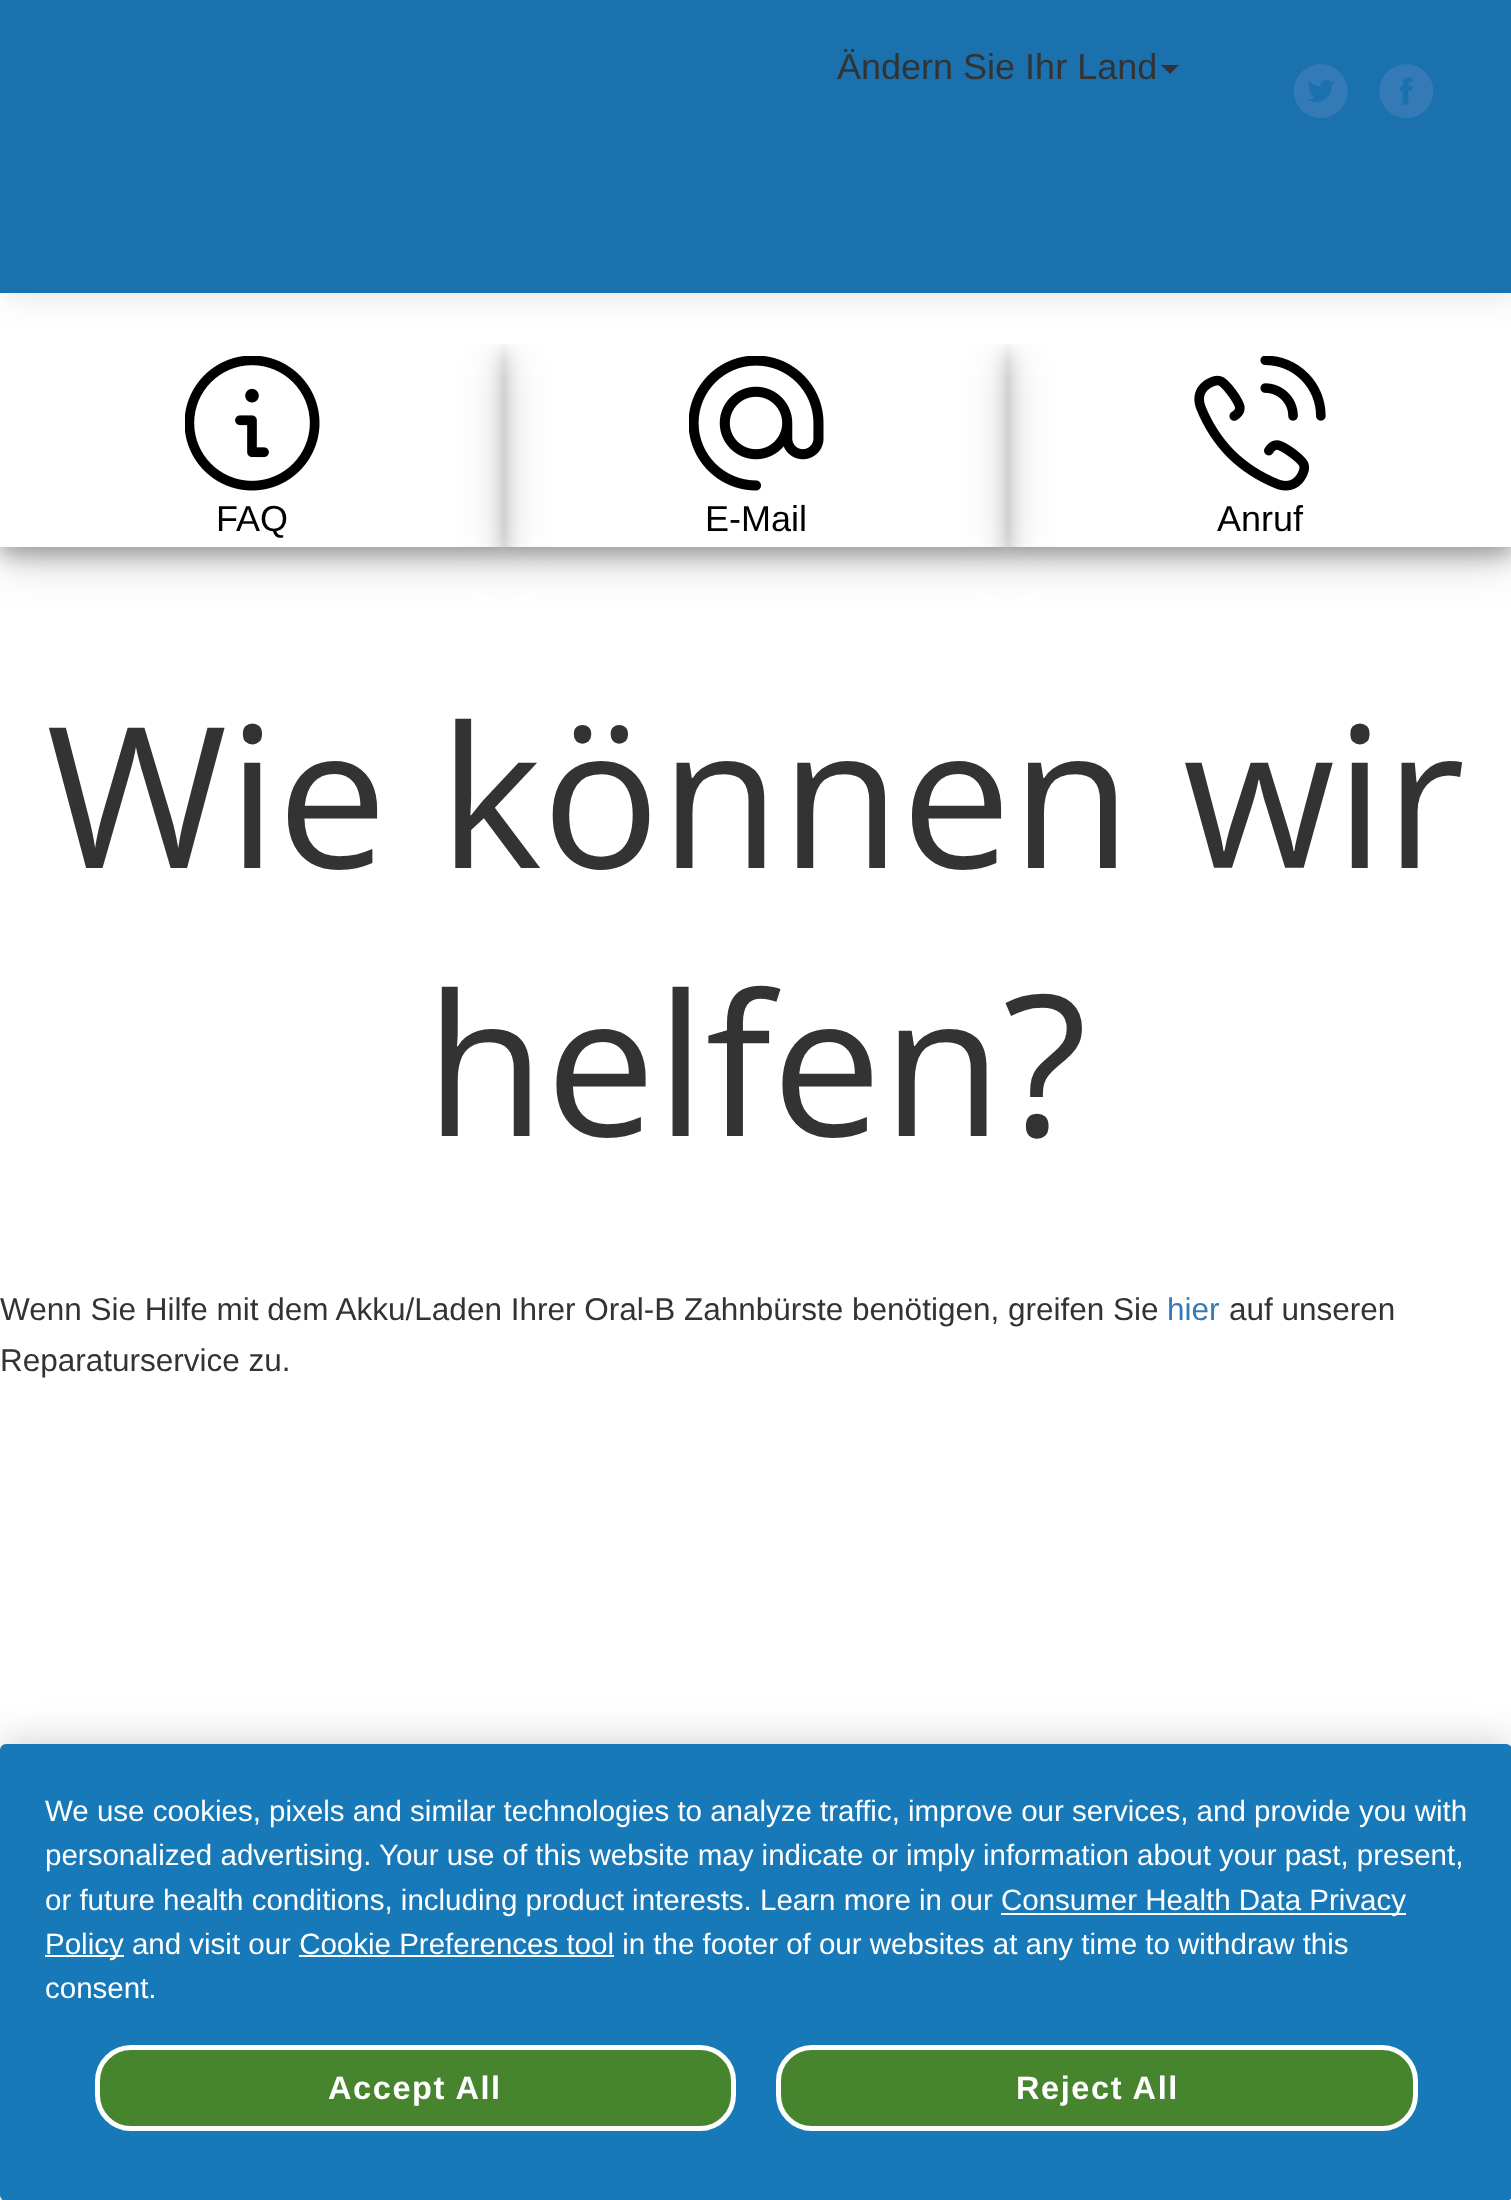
async function draw(canvas) {
  canvas.width = 1511
  canvas.height = 2200
  const ctx = canvas.getContext('2d')
  ctx.miterLimit = 4
  ctx.fontKerning = 'normal'
  async function loadImage(src) {
    const img = new Image()
    img.src = src
    await img.decode()
    return img
  }

  ctx.fillStyle = '#fff'
  ctx.fillRect(0, 0, 1511, 2200)
  ctx.fillStyle = '#ddd'
  ctx.filter = 'blur(17px)'
  ctx.beginPath()
  ctx.rect(5, 0, 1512, 293)
  ctx.fill()
  ctx.filter = 'none'
  ctx.fillStyle = '#1a71ad'
  ctx.fillRect(0, 0, 1511, 293)
  ctx.font = '36px Liberation Sans'
  ctx.fillStyle = '#333'
  ctx.fillText('Ändern Sie Ihr Land', 837, 79)
  ctx.beginPath()
  ctx.moveTo(1161, 65)
  ctx.lineTo(1179, 65)
  ctx.lineTo(1170, 74)
  ctx.closePath()
  ctx.fill()
  ctx.drawImage(await loadImage('image0.png'), 1293, 64, 55, 54)
  ctx.drawImage(await loadImage('image1.png'), 1379, 64, 55, 54)
  ctx.save()
  ctx.beginPath()
  ctx.rect(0, 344, 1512, 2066)
  ctx.clip()
  ctx.fillStyle = '#ddd'
  ctx.filter = 'blur(17px)'
  ctx.beginPath()
  ctx.rect(5, 344, 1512, 203)
  ctx.fill()
  ctx.filter = 'none'
  ctx.restore()
  ctx.fillStyle = '#fff'
  ctx.fillRect(0, 344, 1511, 203)
  ctx.save()
  ctx.beginPath()
  ctx.rect(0, 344, 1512, 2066)
  ctx.clip()
  ctx.beginPath()
  ctx.moveTo(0, 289)
  ctx.lineTo(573, 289)
  ctx.lineTo(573, 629)
  ctx.lineTo(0, 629)
  ctx.closePath()
  ctx.moveTo(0, 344)
  ctx.lineTo(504, 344)
  ctx.lineTo(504, 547)
  ctx.lineTo(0, 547)
  ctx.closePath()
  ctx.clip('evenodd')
  ctx.fillStyle = '#00000030'
  ctx.filter = 'blur(22.5px)'
  ctx.beginPath()
  ctx.rect(0, 358, 504, 202)
  ctx.fill()
  ctx.filter = 'none'
  ctx.restore()
  ctx.save()
  ctx.beginPath()
  ctx.rect(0, 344, 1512, 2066)
  ctx.clip()
  ctx.beginPath()
  ctx.moveTo(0, 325)
  ctx.lineTo(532, 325)
  ctx.lineTo(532, 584)
  ctx.lineTo(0, 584)
  ctx.closePath()
  ctx.moveTo(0, 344)
  ctx.lineTo(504, 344)
  ctx.lineTo(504, 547)
  ctx.lineTo(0, 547)
  ctx.closePath()
  ctx.clip('evenodd')
  ctx.fillStyle = '#00000033'
  ctx.filter = 'blur(9px)'
  ctx.beginPath()
  ctx.rect(0, 353, 504, 203)
  ctx.fill()
  ctx.filter = 'none'
  ctx.restore()
  ctx.drawImage(await loadImage('image2.png'), 185, 356, 135, 135)
  ctx.fillStyle = '#000'
  ctx.fillText('FAQ', 216, 531)
  ctx.save()
  ctx.beginPath()
  ctx.rect(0, 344, 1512, 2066)
  ctx.clip()
  ctx.beginPath()
  ctx.moveTo(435, 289)
  ctx.lineTo(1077, 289)
  ctx.lineTo(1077, 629)
  ctx.lineTo(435, 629)
  ctx.closePath()
  ctx.moveTo(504, 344)
  ctx.lineTo(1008, 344)
  ctx.lineTo(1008, 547)
  ctx.lineTo(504, 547)
  ctx.closePath()
  ctx.clip('evenodd')
  ctx.fillStyle = '#00000030'
  ctx.filter = 'blur(22.5px)'
  ctx.beginPath()
  ctx.rect(504, 358, 504, 202)
  ctx.fill()
  ctx.filter = 'none'
  ctx.restore()
  ctx.save()
  ctx.beginPath()
  ctx.rect(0, 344, 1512, 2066)
  ctx.clip()
  ctx.beginPath()
  ctx.moveTo(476, 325)
  ctx.lineTo(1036, 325)
  ctx.lineTo(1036, 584)
  ctx.lineTo(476, 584)
  ctx.closePath()
  ctx.moveTo(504, 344)
  ctx.lineTo(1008, 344)
  ctx.lineTo(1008, 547)
  ctx.lineTo(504, 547)
  ctx.closePath()
  ctx.clip('evenodd')
  ctx.fillStyle = '#00000033'
  ctx.filter = 'blur(9px)'
  ctx.beginPath()
  ctx.rect(504, 353, 504, 203)
  ctx.fill()
  ctx.filter = 'none'
  ctx.restore()
  ctx.drawImage(await loadImage('image3.png'), 689, 356, 135, 135)
  ctx.fillText('E-Mail', 705, 531)
  ctx.save()
  ctx.beginPath()
  ctx.rect(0, 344, 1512, 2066)
  ctx.clip()
  ctx.beginPath()
  ctx.moveTo(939, 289)
  ctx.lineTo(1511, 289)
  ctx.lineTo(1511, 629)
  ctx.lineTo(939, 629)
  ctx.closePath()
  ctx.moveTo(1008, 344)
  ctx.lineTo(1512, 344)
  ctx.lineTo(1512, 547)
  ctx.lineTo(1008, 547)
  ctx.closePath()
  ctx.clip('evenodd')
  ctx.fillStyle = '#00000030'
  ctx.filter = 'blur(22.5px)'
  ctx.beginPath()
  ctx.rect(1008, 358, 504, 202)
  ctx.fill()
  ctx.filter = 'none'
  ctx.restore()
  ctx.save()
  ctx.beginPath()
  ctx.rect(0, 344, 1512, 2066)
  ctx.clip()
  ctx.beginPath()
  ctx.moveTo(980, 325)
  ctx.lineTo(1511, 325)
  ctx.lineTo(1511, 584)
  ctx.lineTo(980, 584)
  ctx.closePath()
  ctx.moveTo(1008, 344)
  ctx.lineTo(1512, 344)
  ctx.lineTo(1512, 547)
  ctx.lineTo(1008, 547)
  ctx.closePath()
  ctx.clip('evenodd')
  ctx.fillStyle = '#00000033'
  ctx.filter = 'blur(9px)'
  ctx.beginPath()
  ctx.rect(1008, 353, 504, 203)
  ctx.fill()
  ctx.filter = 'none'
  ctx.restore()
  ctx.drawImage(await loadImage('image4.png'), 1194, 356, 132, 135)
  ctx.fillText('Anruf', 1217, 531)
  ctx.font = '196.5px Open Sans'
  ctx.fillStyle = '#333'
  ctx.fillText('Wie können wir', 46, 868)
  ctx.fillText('helfen?', 425, 1136)
  ctx.font = '31.5px Liberation Sans'
  ctx.fillText('Wenn Sie Hilfe mit dem Akku/Laden Ihrer Oral-B Zahnbürste benötigen, greifen Sie', 0, 1320)
  ctx.fillStyle = '#337ab7'
  ctx.fillText('hier', 1167, 1320)
  ctx.fillStyle = '#333'
  ctx.fillText('auf unseren', 1229, 1320)
  ctx.fillText('Reparaturservice zu.', 0, 1371)
  ctx.fillStyle = '#00000033'
  ctx.filter = 'blur(20px)'
  ctx.beginPath()
  ctx.roundRect(0, 1744, 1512, 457, 6)
  ctx.fill()
  ctx.filter = 'none'
  ctx.fillStyle = '#1879b9'
  ctx.beginPath()
  ctx.roundRect(0, 1744, 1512, 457, 6)
  ctx.fill()
  ctx.font = '29.5px Liberation Sans'
  ctx.fillStyle = '#fff'
  ctx.fillText('We use cookies, pixels and similar technologies to analyze traffic, improve our services, and provide you with', 45, 1821)
  ctx.fillText('personalized advertising.', 45, 1865)
  ctx.fillText('Your use of this website may indicate or imply information about your past, present,', 379, 1865)
  ctx.fillText('or future health conditions, including product interests.', 45, 1910)
  ctx.fillText('Learn more in our', 760, 1910)
  ctx.fillRect(1001, 1913, 405, 2)
  ctx.fillText('Consumer Health Data Privacy', 1001, 1910)
  ctx.fillRect(45, 1955, 79, 2)
  ctx.fillText('Policy and visit our Cookie Preferences tool in the footer of our websites at any time to withdraw this', 45, 1954)
  ctx.fillRect(299, 1955, 315, 2)
  ctx.fillText('consent.', 45, 1998)
  ctx.fillStyle = '#47842e'
  ctx.beginPath()
  ctx.roundRect(97.5, 2047.5, 636, 81, 33.5)
  ctx.fill()
  ctx.strokeStyle = '#fff'
  ctx.lineWidth = 5
  ctx.stroke()
  ctx.letterSpacing = '1.6px'
  ctx.font = 'bold 32.5px Liberation Sans'
  ctx.fillStyle = '#fff'
  ctx.fillText('Accept All', 328, 2099)
  ctx.fillStyle = '#47842e'
  ctx.beginPath()
  ctx.roundRect(778.5, 2047.5, 637, 81, 33.5)
  ctx.fill()
  ctx.stroke()
  ctx.fillStyle = '#fff'
  ctx.fillText('Reject All', 1016, 2099)
}

draw(document.querySelector('canvas'))
